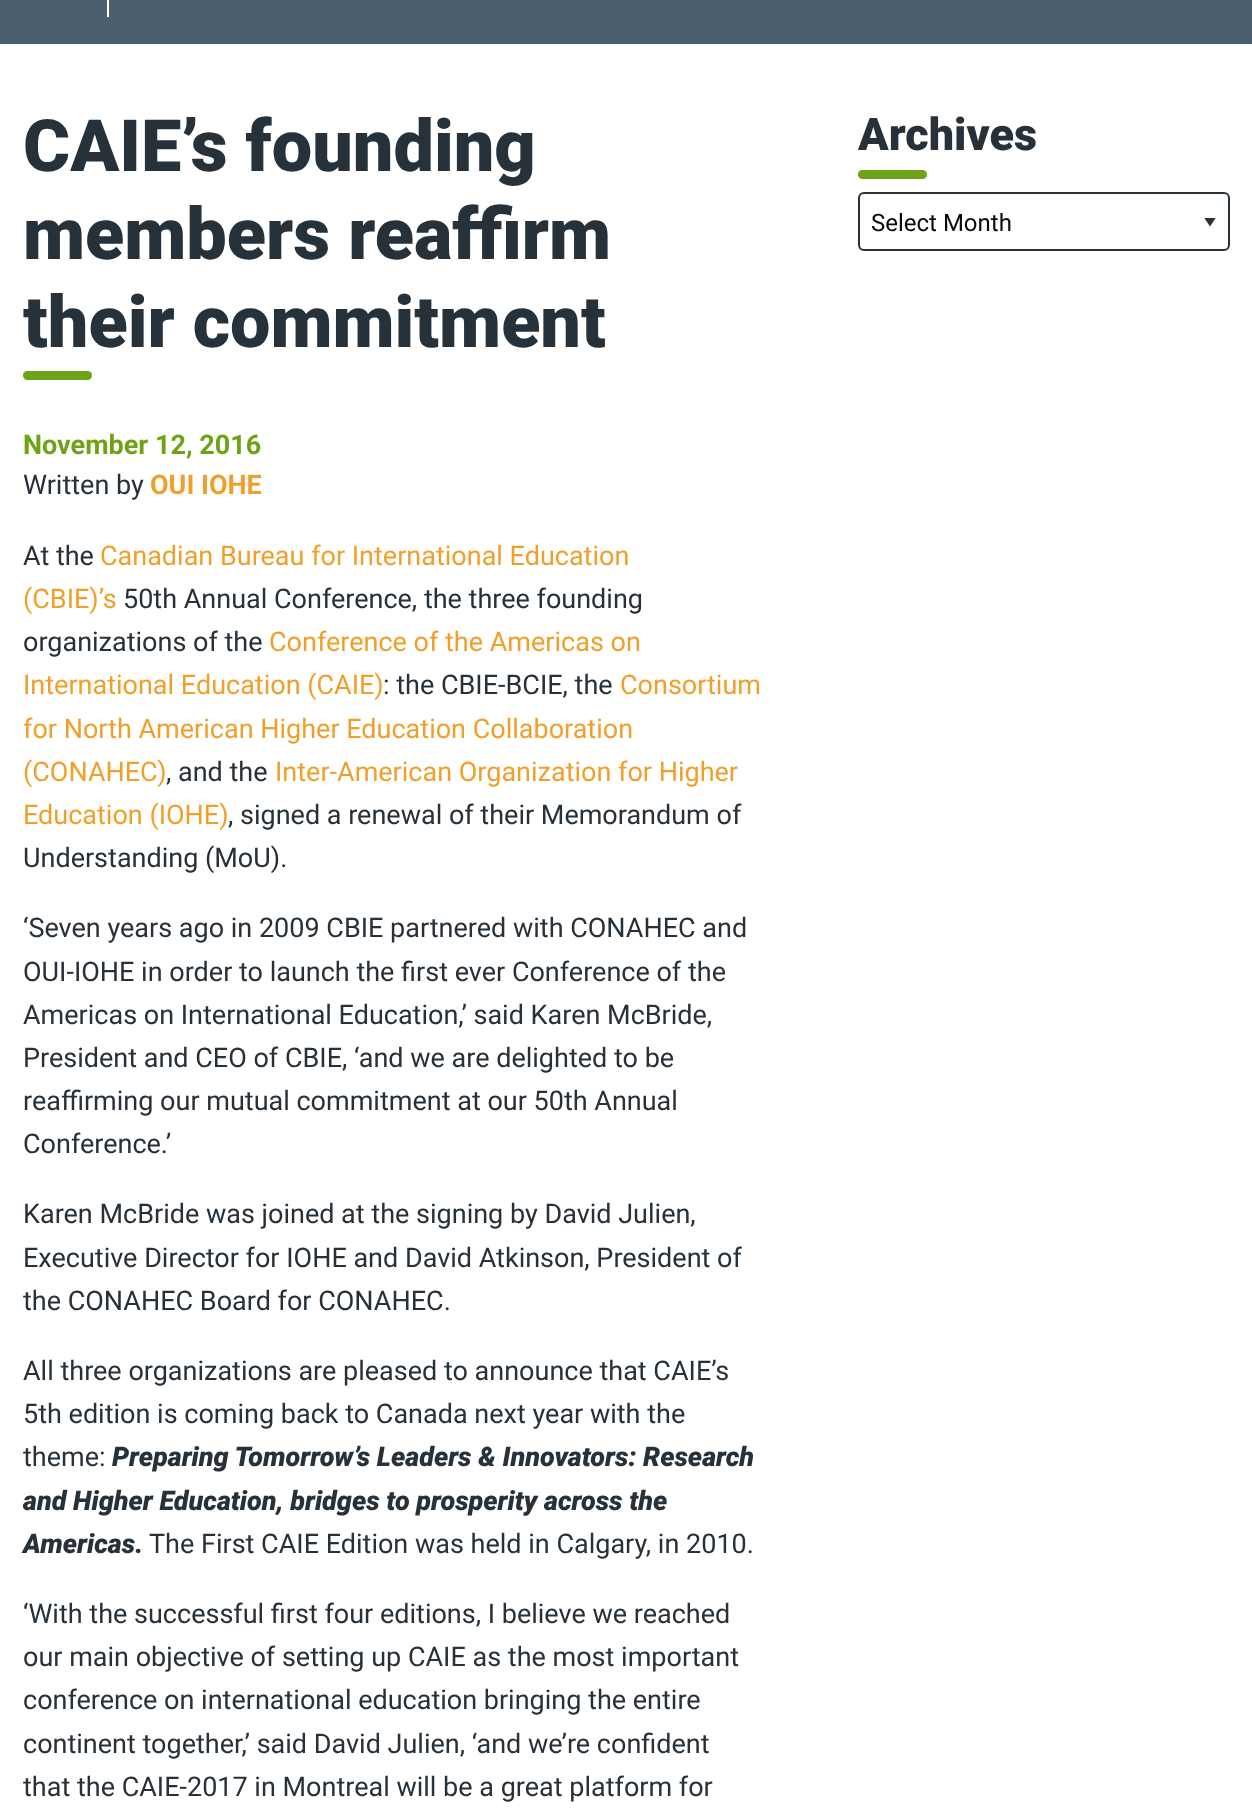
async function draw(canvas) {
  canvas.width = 1252
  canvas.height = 1810
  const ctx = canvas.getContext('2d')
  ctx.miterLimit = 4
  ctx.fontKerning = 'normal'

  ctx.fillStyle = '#fff'
  ctx.fillRect(0, 0, 1252, 1810)
  ctx.fillStyle = '#4b5e6d'
  ctx.fillRect(0, 0, 1252, 44)
  ctx.fillStyle = '#fff'
  ctx.fillRect(107, 0, 2, 17)
  ctx.font = '900 72px Roboto'
  ctx.fillStyle = '#27313a'
  ctx.fillText('CAIE’s founding', 23, 171)
  ctx.fillText('members reaffirm', 23, 259)
  ctx.fillText('their commitment', 23, 347)
  ctx.fillStyle = '#6fa317'
  ctx.beginPath()
  ctx.roundRect(23, 371, 69, 9, 4.5)
  ctx.fill()
  ctx.font = 'bold 27px Roboto'
  ctx.fillText('November 12, 2016', 23, 454)
  ctx.font = '27px Roboto'
  ctx.fillStyle = '#27313a'
  ctx.fillText('Written by', 23, 494)
  ctx.font = 'bold 27px Roboto'
  ctx.fillStyle = '#f0a02a'
  ctx.fillText('OUI IOHE', 150, 494)
  ctx.font = '27px Roboto'
  ctx.fillStyle = '#27313a'
  ctx.fillText('At the', 23, 565)
  ctx.fillStyle = '#f0a02a'
  ctx.fillText('Canadian Bureau for International Education', 100, 565)
  ctx.fillText('(CBIE)’s', 23, 608)
  ctx.fillStyle = '#27313a'
  ctx.fillText('50th Annual Conference, the three founding', 123, 608)
  ctx.fillText('organizations of the', 23, 651)
  ctx.fillStyle = '#f0a02a'
  ctx.fillText('Conference of the Americas on', 269, 651)
  ctx.fillText('International Education (CAIE)', 23, 694)
  ctx.fillStyle = '#27313a'
  ctx.fillText(': the CBIE-BCIE, the', 383, 694)
  ctx.fillStyle = '#f0a02a'
  ctx.fillText('Consortium', 620, 694)
  ctx.fillText('for North American Higher Education Collaboration', 23, 738)
  ctx.fillText('(CONAHEC)', 23, 781)
  ctx.fillStyle = '#27313a'
  ctx.fillText(', and the', 166, 781)
  ctx.fillStyle = '#f0a02a'
  ctx.fillText('Inter-American Organization for Higher', 275, 781)
  ctx.fillText('Education (IOHE)', 23, 824)
  ctx.fillStyle = '#27313a'
  ctx.fillText(', signed a renewal of their Memorandum of', 228, 824)
  ctx.fillText('Understanding (MoU).', 23, 867)
  ctx.fillText('‘Seven years ago in 2009 CBIE partnered with CONAHEC and', 23, 937)
  ctx.fillText('OUI-IOHE in order to launch the first ever Conference of the', 23, 981)
  ctx.fillText('Americas on International Education,’ said Karen McBride,', 23, 1024)
  ctx.fillText('President and CEO of CBIE, ‘and we are delighted to be', 23, 1067)
  ctx.fillText('reaffirming our mutual commitment at our 50th Annual', 23, 1110)
  ctx.fillText('Conference.’', 23, 1153)
  ctx.fillText('Karen McBride was joined at the signing by David Julien,', 23, 1223)
  ctx.fillText('Executive Director for IOHE and David Atkinson, President of', 23, 1267)
  ctx.fillText('the CONAHEC Board for CONAHEC.', 23, 1310)
  ctx.fillText('All three organizations are pleased to announce that CAIE’s', 23, 1380)
  ctx.fillText('5th edition is coming back to Canada next year with the', 23, 1423)
  ctx.fillText('theme:', 23, 1466)
  ctx.font = 'italic 900 27px Roboto'
  ctx.fillText('Preparing Tomorrow’s Leaders & Innovators: Research', 112, 1466)
  ctx.fillText('and Higher Education, bridges to prosperity across the', 23, 1510)
  ctx.fillText('Americas.', 23, 1553)
  ctx.font = '27px Roboto'
  ctx.fillText('The First CAIE Edition was held in Calgary, in 2010.', 149, 1553)
  ctx.fillText('‘With the successful first four editions, I believe we reached', 23, 1623)
  ctx.fillText('our main objective of setting up CAIE as the most important', 23, 1666)
  ctx.fillText('conference on international education bringing the entire', 23, 1709)
  ctx.fillText('continent together,’ said David Julien, ‘and we’re confident', 23, 1753)
  ctx.fillText('that the CAIE-2017 in Montreal will be a great platform for', 23, 1796)
  ctx.font = '900 45px Roboto'
  ctx.fillText('Archives', 858, 150)
  ctx.fillStyle = '#6fa317'
  ctx.beginPath()
  ctx.roundRect(858, 170, 69, 9, 4.5)
  ctx.fill()
  ctx.save()
  ctx.beginPath()
  ctx.rect(1203, 218, 14, 9)
  ctx.clip()
  ctx.fillStyle = '#27313a'
  ctx.beginPath()
  ctx.moveTo(1204, 217.5)
  ctx.lineTo(1216, 217.5)
  ctx.lineTo(1210, 226.5)
  ctx.closePath()
  ctx.fill()
  ctx.restore()
  ctx.beginPath()
  ctx.roundRect(859, 193, 370, 57, 5)
  ctx.strokeStyle = '#27313a'
  ctx.lineWidth = 2
  ctx.stroke()
  ctx.font = '24px Roboto'
  ctx.fillStyle = '#0a0a0a'
  ctx.fillText('Select Month', 871, 231)
}

draw(document.querySelector('canvas'))
